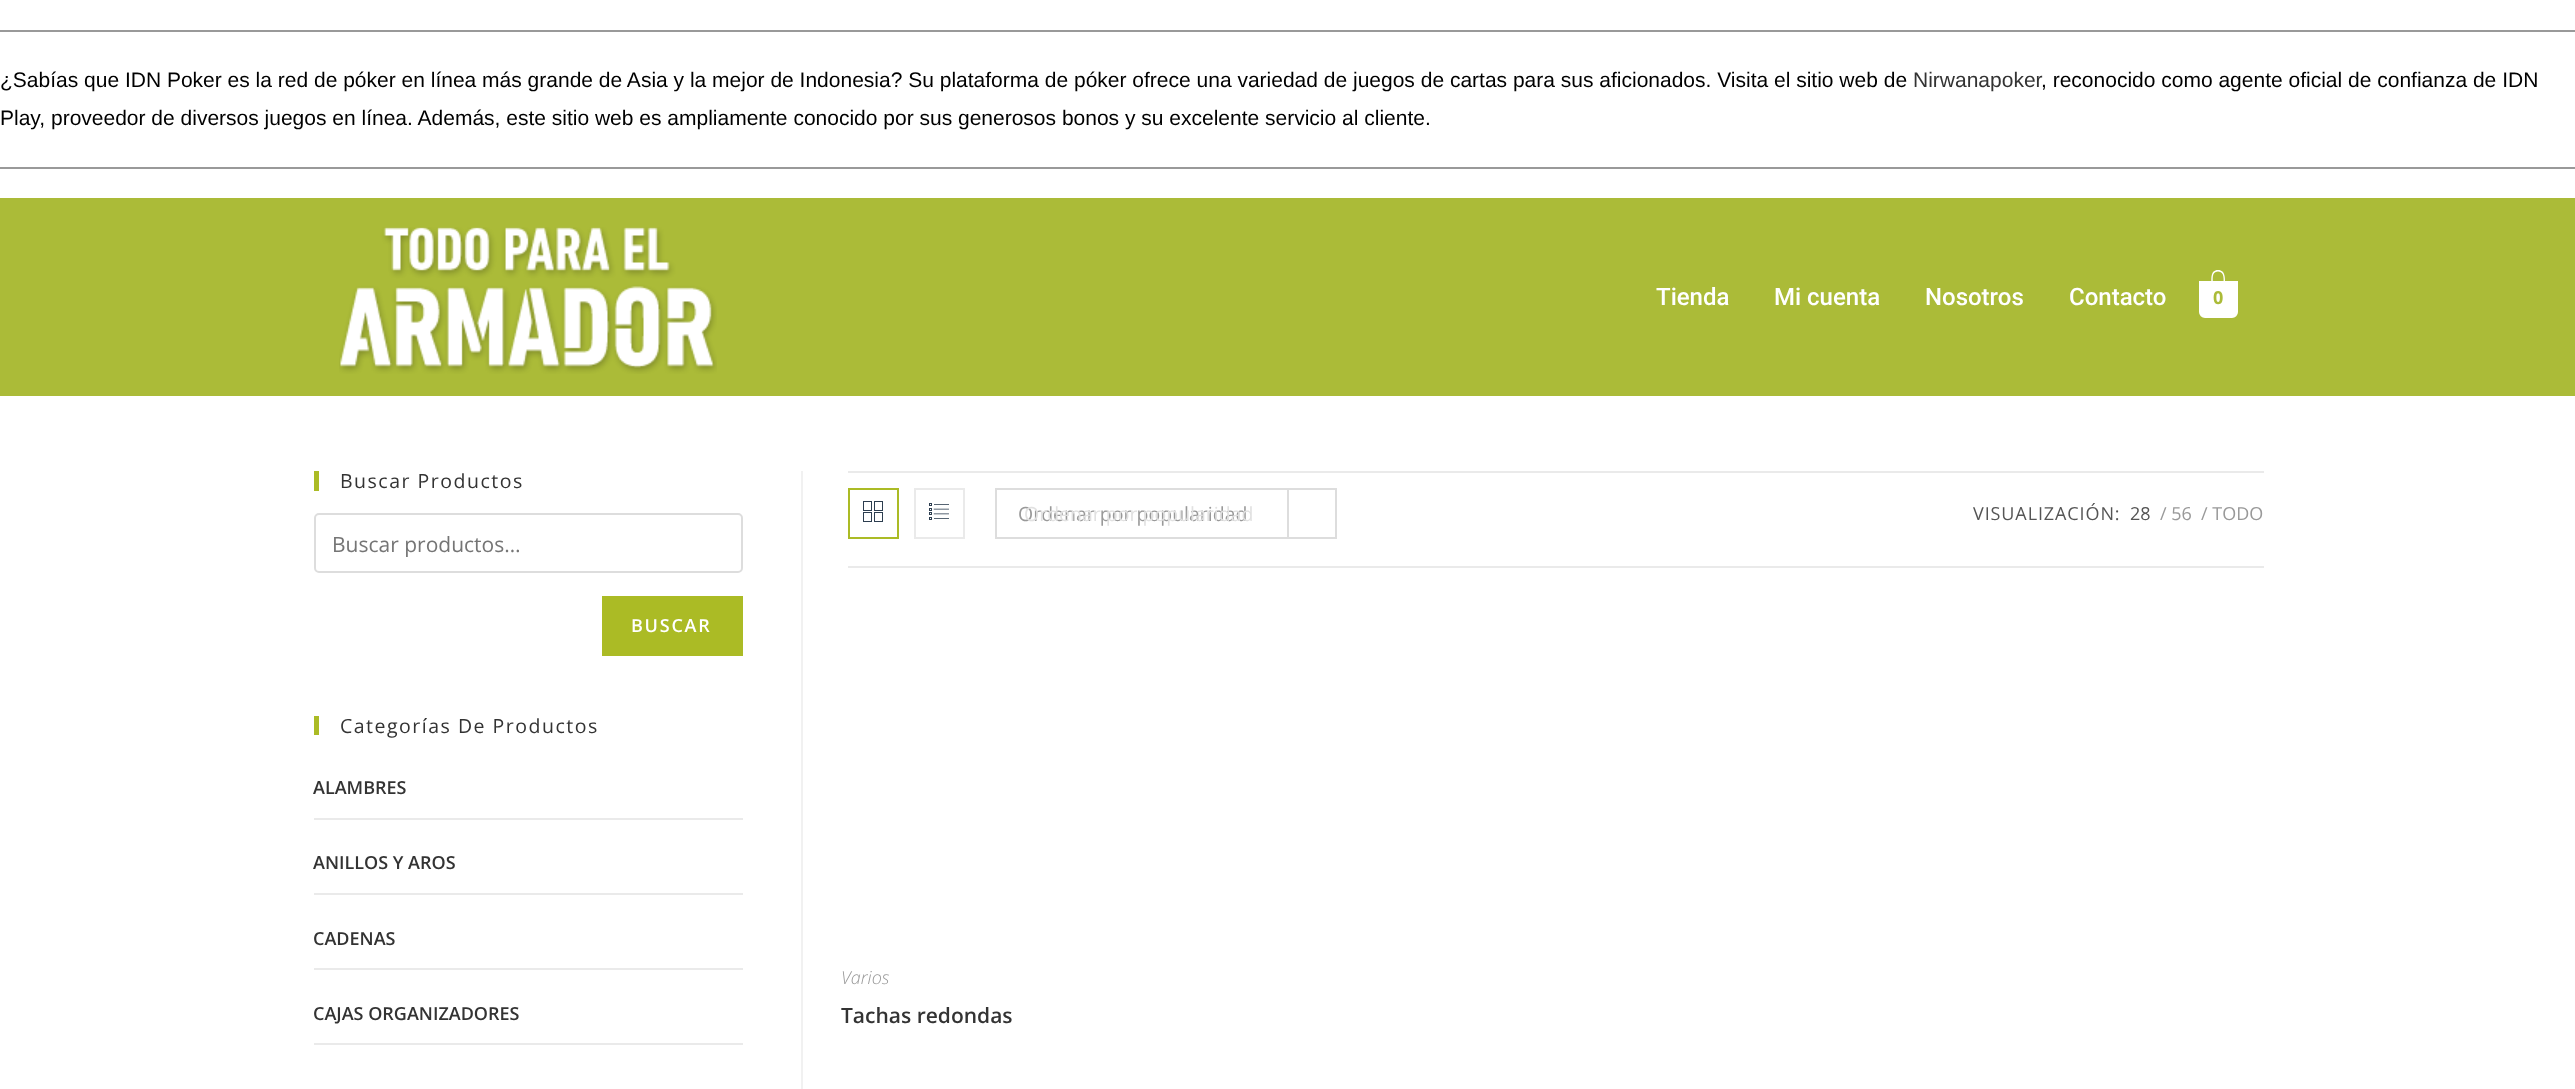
async function draw(canvas) {
  canvas.width = 2575
  canvas.height = 1089
  const ctx = canvas.getContext('2d')
  ctx.miterLimit = 4
  ctx.fontKerning = 'normal'
  async function loadImage(src) {
    const img = new Image()
    img.src = src
    await img.decode()
    return img
  }

  ctx.fillStyle = '#fff'
  ctx.fillRect(0, 0, 2575, 1089)
  ctx.fillStyle = '#999'
  ctx.fillRect(0, 30, 2575, 2)
  ctx.font = '21px Liberation Sans'
  ctx.fillStyle = '#000'
  ctx.fillText('¿Sabías que IDN Poker es la red de póker en línea más grande de Asia y la mejor de Indonesia? Su plataforma de póker ofrece una variedad de juegos de cartas para sus aficionados. Visita el sitio web de', 0, 87)
  ctx.fillStyle = '#333'
  ctx.fillText('Nirwanapoker', 1913, 87)
  ctx.fillStyle = '#000'
  ctx.fillText(', reconocido como agente oficial de confianza de IDN', 2041, 87)
  ctx.fillText('Play, proveedor de diversos juegos en línea. Además, este sitio web es ampliamente conocido por sus generosos bonos y su excelente servicio al cliente.', 0, 125)
  ctx.fillStyle = '#999'
  ctx.fillRect(0, 167, 2575, 2)
  ctx.fillStyle = '#abbb38'
  ctx.fillRect(0, 198, 2575, 198)
  ctx.drawImage(await loadImage('image0.png'), 339, 227, 378, 147)
  ctx.font = '500 24px Roboto'
  ctx.fillStyle = '#fff'
  ctx.fillText('Tienda', 1656, 305)
  ctx.fillText('Mi cuenta', 1774, 305)
  ctx.fillText('Nosotros', 1925, 305)
  ctx.fillText('Contacto', 2069, 305)
  ctx.beginPath()
  ctx.roundRect(2200, 282, 37, 35, [0, 0, 5, 5])
  ctx.fill()
  ctx.strokeStyle = '#fff'
  ctx.lineWidth = 2
  ctx.stroke()
  ctx.beginPath()
  ctx.moveTo(2218, 270)
  ctx.bezierCurveTo(2226, 270, 2225, 279.5, 2225, 285)
  ctx.lineTo(2211.5, 285)
  ctx.bezierCurveTo(2211.5, 279.5, 2210, 270, 2218, 270)
  ctx.closePath()
  ctx.moveTo(2218, 271.5)
  ctx.bezierCurveTo(2225, 271.5, 2223.5, 280.5, 2223.5, 285)
  ctx.lineTo(2213, 285)
  ctx.bezierCurveTo(2213, 280.5, 2211, 271.5, 2218, 271.5)
  ctx.closePath()
  ctx.fill('evenodd')
  ctx.font = 'bold 18px Open Sans'
  ctx.fillStyle = '#abbb38'
  ctx.fillText('0', 2213, 304)
  ctx.fillStyle = '#abbb25'
  ctx.fillRect(314, 471, 5, 20)
  ctx.letterSpacing = '1.5px'
  ctx.font = '19.5px Open Sans'
  ctx.fillStyle = '#333'
  ctx.fillText('Buscar Productos', 340, 488)
  ctx.beginPath()
  ctx.roundRect(315, 514, 427, 58, 4)
  ctx.strokeStyle = '#ddd'
  ctx.stroke()
  ctx.letterSpacing = '0px'
  ctx.font = '21px Open Sans'
  ctx.fillStyle = '#757575'
  ctx.fillText('Buscar productos…', 332, 552)
  ctx.fillStyle = '#abbb25'
  ctx.fillRect(602, 596, 141, 60)
  ctx.letterSpacing = '1.75px'
  ctx.font = '600 18px Open Sans'
  ctx.fillStyle = '#fff'
  ctx.fillText('BUSCAR', 631, 632)
  ctx.fillStyle = '#abbb25'
  ctx.fillRect(314, 716, 5, 19)
  ctx.letterSpacing = '1.5px'
  ctx.font = '19.5px Open Sans'
  ctx.fillStyle = '#333'
  ctx.fillText('Categorías De Productos', 340, 733)
  ctx.fillStyle = '#eaeaea'
  ctx.fillRect(314, 818, 429, 2)
  ctx.letterSpacing = '0px'
  ctx.font = '600 18px Open Sans'
  ctx.fillStyle = '#333'
  ctx.fillText('ALAMBRES', 313, 794)
  ctx.fillStyle = '#eaeaea'
  ctx.fillRect(314, 893, 429, 2)
  ctx.fillStyle = '#333'
  ctx.fillText('ANILLOS Y AROS', 313, 869)
  ctx.fillStyle = '#eaeaea'
  ctx.fillRect(314, 968, 429, 2)
  ctx.fillStyle = '#333'
  ctx.fillText('CADENAS', 313, 945)
  ctx.fillStyle = '#eaeaea'
  ctx.fillRect(314, 1043, 429, 2)
  ctx.fillStyle = '#333'
  ctx.fillText('CAJAS ORGANIZADORES', 313, 1020)
  ctx.fillStyle = '#f1f1f1'
  ctx.fillRect(801, 471, 2, 618)
  ctx.fillStyle = '#eaeaea'
  ctx.fillRect(848, 471, 1416, 2)
  ctx.fillRect(848, 566, 1416, 2)
  ctx.strokeStyle = '#abbb25'
  ctx.strokeRect(849, 489, 49, 49)
  ctx.strokeStyle = '#2d3e50'
  ctx.lineWidth = 1
  ctx.strokeRect(863.5, 501.5, 8, 9)
  ctx.strokeRect(874.5, 501.5, 8, 9)
  ctx.strokeRect(863.5, 512.5, 8, 9)
  ctx.strokeRect(874.5, 512.5, 8, 9)
  ctx.strokeStyle = '#eaeaea'
  ctx.lineWidth = 2
  ctx.strokeRect(915, 489, 49, 49)
  ctx.drawImage(await loadImage('image1.png'), 929, 503, 20, 17)
  ctx.strokeStyle = '#ddd'
  ctx.strokeRect(996, 489, 340, 49)
  ctx.font = '19.5px Open Sans'
  ctx.fillStyle = '#999'
  ctx.fillText('Ordenar por popularidad', 1018, 521)
  ctx.fillStyle = '#ddd'
  ctx.fillRect(1287, 489, 2, 48)
  ctx.fillStyle = '#e1e1e1'
  ctx.fillText('Ordenar por popularidad', 1024, 521)
  ctx.letterSpacing = '0.9px'
  ctx.font = '18px Open Sans'
  ctx.fillStyle = '#555'
  ctx.fillText('VISUALIZACIÓN:', 1973, 520)
  ctx.letterSpacing = '0px'
  ctx.fillText('28', 2130, 520)
  ctx.fillStyle = '#999'
  ctx.fillText('/ 56', 2160, 520)
  ctx.fillText('/ TODO', 2201, 520)
  ctx.font = 'italic 300 18px Open Sans'
  ctx.fillText('Varios', 841, 984)
  ctx.font = '600 21px Open Sans'
  ctx.fillStyle = '#333'
  ctx.fillText('Tachas redondas', 841, 1023)
}

draw(document.querySelector('canvas'))
